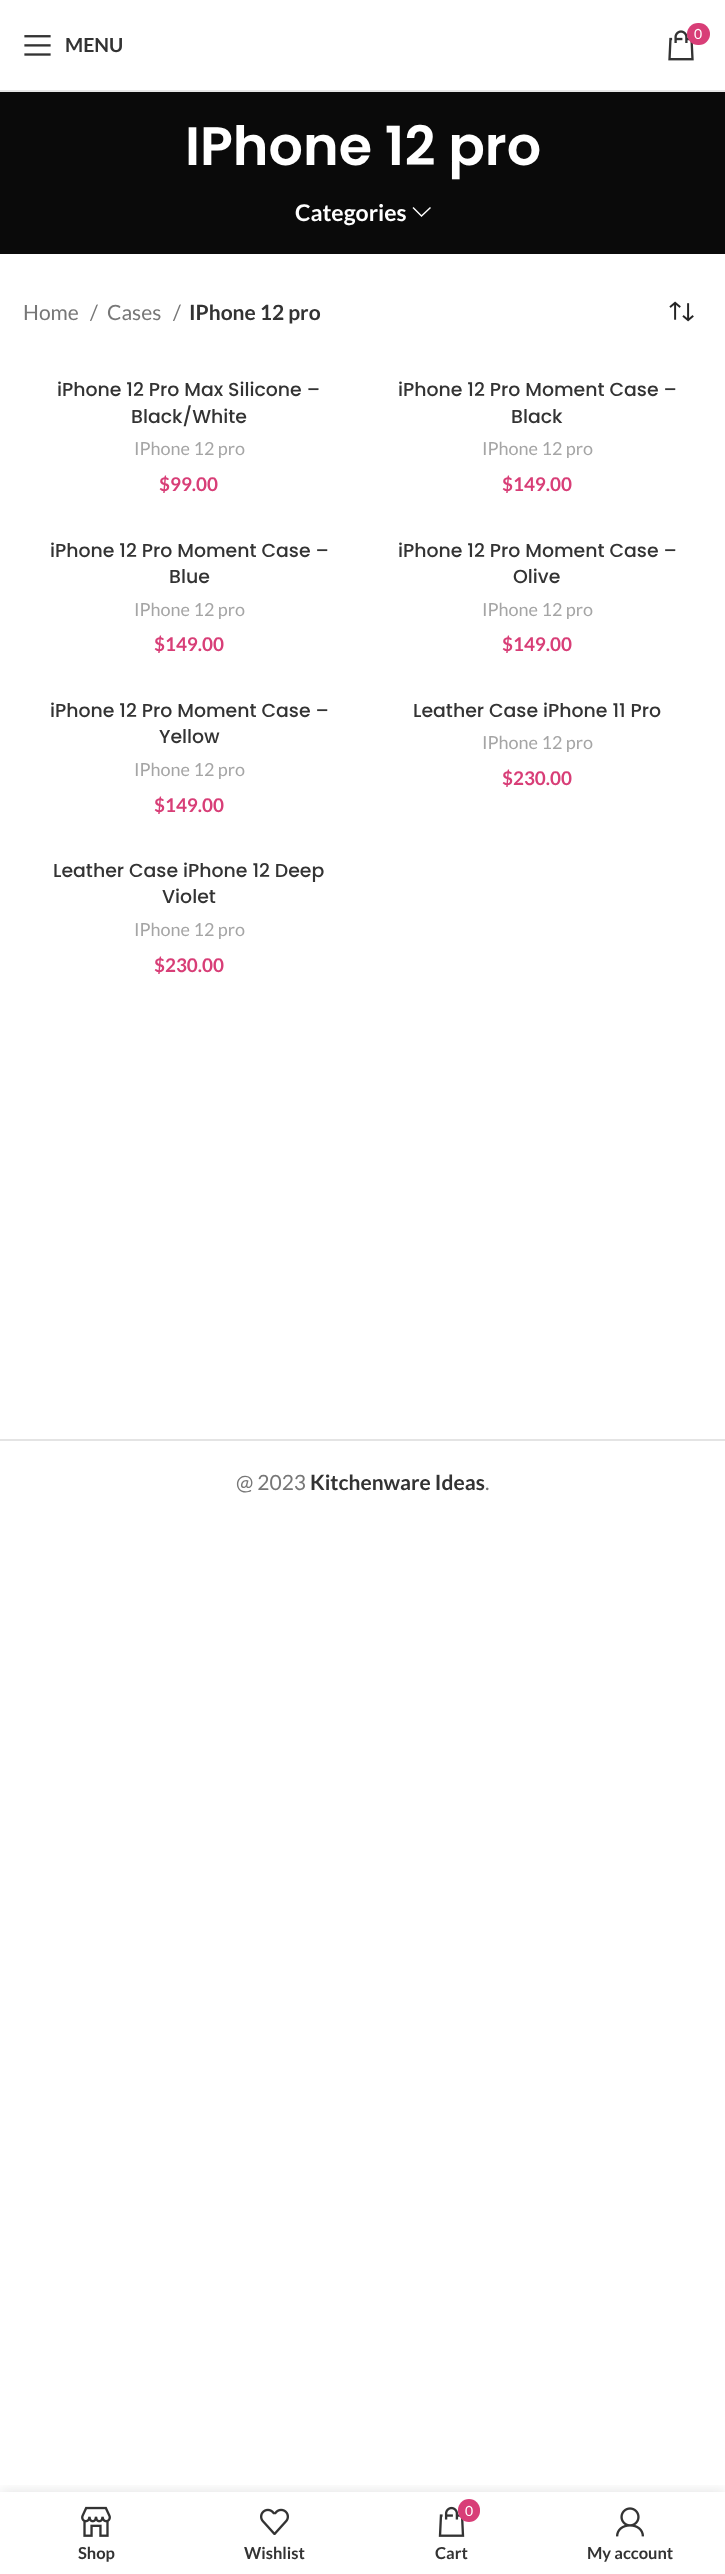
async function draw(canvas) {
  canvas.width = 725
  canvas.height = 2574
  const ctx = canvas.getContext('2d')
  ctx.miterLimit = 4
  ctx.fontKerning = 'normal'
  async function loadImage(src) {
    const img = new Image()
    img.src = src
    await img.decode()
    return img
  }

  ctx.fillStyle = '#fff'
  ctx.fillRect(0, 0, 725, 2574)
  ctx.fillStyle = '#e6e6e6'
  ctx.fillRect(0, 90, 725, 2)
  ctx.drawImage(await loadImage('image0.png'), 668, 30, 26, 31)
  ctx.fillStyle = '#d83e77'
  ctx.beginPath()
  ctx.roundRect(687, 23, 23, 22, 11)
  ctx.fill()
  ctx.font = '14px Lato'
  ctx.fillStyle = '#fff'
  ctx.fillText('0', 694, 39)
  ctx.drawImage(await loadImage('image1.png'), 24, 35, 27, 21)
  ctx.font = 'bold 19.5px Lato'
  ctx.fillStyle = '#333'
  ctx.fillText('MENU', 65, 52)
  ctx.fillStyle = '#0a0a0a'
  ctx.fillRect(0, 92, 725, 162)
  ctx.font = '600 54px Poppins'
  ctx.fillStyle = '#fff'
  ctx.fillText('IPhone 12 pro', 185, 165)
  ctx.font = 'bold 23px Lato'
  ctx.fillText('Categories', 295, 221)
  ctx.beginPath()
  ctx.moveTo(430, 207)
  ctx.lineTo(421.5, 215)
  ctx.lineTo(413.5, 207)
  ctx.lineTo(412.5, 208)
  ctx.lineTo(421.5, 217)
  ctx.lineTo(431, 208)
  ctx.closePath()
  ctx.fill()
  ctx.font = '21px Lato'
  ctx.fillStyle = '#777'
  ctx.fillText('Home', 23, 320)
  ctx.fillText('/', 90, 320)
  ctx.fillText('Cases', 107, 320)
  ctx.fillText('/', 173, 320)
  ctx.font = 'bold 21px Lato'
  ctx.fillStyle = '#333'
  ctx.fillText('IPhone 12 pro', 189, 320)
  ctx.drawImage(await loadImage('image2.png'), 669, 301, 25, 21)
  ctx.font = '500 18.9px Poppins'
  ctx.fillText('iPhone 12 Pro Max Silicone –', 57, 396)
  ctx.fillText('Black/White', 131, 423)
  ctx.font = '18px Lato'
  ctx.fillStyle = '#a5a5a5'
  ctx.fillText('IPhone 12 pro', 134, 455)
  ctx.font = 'bold 18.9px Lato'
  ctx.fillStyle = '#d83e77'
  ctx.fillText('$99.00', 159, 491)
  ctx.font = '500 18.9px Poppins'
  ctx.fillStyle = '#333'
  ctx.fillText('iPhone 12 Pro Moment Case –', 398, 396)
  ctx.fillText('Black', 511, 423)
  ctx.font = '18px Lato'
  ctx.fillStyle = '#a5a5a5'
  ctx.fillText('IPhone 12 pro', 482, 455)
  ctx.font = 'bold 18.9px Lato'
  ctx.fillStyle = '#d83e77'
  ctx.fillText('$149.00', 502, 491)
  ctx.font = '500 18.9px Poppins'
  ctx.fillStyle = '#333'
  ctx.fillText('iPhone 12 Pro Moment Case –', 50, 557)
  ctx.fillText('Blue', 169, 583)
  ctx.font = '18px Lato'
  ctx.fillStyle = '#a5a5a5'
  ctx.fillText('IPhone 12 pro', 134, 616)
  ctx.font = 'bold 18.9px Lato'
  ctx.fillStyle = '#d83e77'
  ctx.fillText('$149.00', 154, 651)
  ctx.font = '500 18.9px Poppins'
  ctx.fillStyle = '#333'
  ctx.fillText('iPhone 12 Pro Moment Case –', 398, 557)
  ctx.fillText('Olive', 513, 583)
  ctx.font = '18px Lato'
  ctx.fillStyle = '#a5a5a5'
  ctx.fillText('IPhone 12 pro', 482, 616)
  ctx.font = 'bold 18.9px Lato'
  ctx.fillStyle = '#d83e77'
  ctx.fillText('$149.00', 502, 651)
  ctx.font = '500 18.9px Poppins'
  ctx.fillStyle = '#333'
  ctx.fillText('iPhone 12 Pro Moment Case –', 50, 717)
  ctx.fillText('Yellow', 159, 743)
  ctx.font = '18px Lato'
  ctx.fillStyle = '#a5a5a5'
  ctx.fillText('IPhone 12 pro', 134, 776)
  ctx.font = 'bold 18.9px Lato'
  ctx.fillStyle = '#d83e77'
  ctx.fillText('$149.00', 154, 812)
  ctx.font = '500 18.9px Poppins'
  ctx.fillStyle = '#333'
  ctx.fillText('Leather Case iPhone 11 Pro', 413, 717)
  ctx.font = '18px Lato'
  ctx.fillStyle = '#a5a5a5'
  ctx.fillText('IPhone 12 pro', 482, 749)
  ctx.font = 'bold 18.9px Lato'
  ctx.fillStyle = '#d83e77'
  ctx.fillText('$230.00', 502, 785)
  ctx.font = '500 18.9px Poppins'
  ctx.fillStyle = '#333'
  ctx.fillText('Leather Case iPhone 12 Deep', 53, 877)
  ctx.fillText('Violet', 162, 903)
  ctx.font = '18px Lato'
  ctx.fillStyle = '#a5a5a5'
  ctx.fillText('IPhone 12 pro', 134, 936)
  ctx.font = 'bold 18.9px Lato'
  ctx.fillStyle = '#d83e77'
  ctx.fillText('$230.00', 154, 972)
  ctx.fillStyle = '#e4e4e4'
  ctx.fillRect(0, 1439, 725, 2)
  ctx.font = '21px Lato'
  ctx.fillStyle = '#777'
  ctx.fillText('@ 2023', 236, 1490)
  ctx.font = 'bold 21px Lato'
  ctx.fillStyle = '#333'
  ctx.fillText('Kitchenware Ideas', 310, 1490)
  ctx.font = '21px Lato'
  ctx.fillStyle = '#777'
  ctx.fillText('.', 485, 1490)
  ctx.save()
  ctx.beginPath()
  ctx.rect(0, 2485, 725, 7)
  ctx.clip()
  ctx.fillStyle = '#0000001f'
  ctx.filter = 'blur(7px)'
  ctx.beginPath()
  ctx.rect(0, 2492, 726, 82)
  ctx.fill()
  ctx.filter = 'none'
  ctx.restore()
  ctx.drawImage(await loadImage('image3.png'), 81, 2506, 30, 31)
  ctx.font = 'bold 16.5px Lato'
  ctx.fillStyle = '#333'
  ctx.fillText('Shop', 78, 2559)
  ctx.drawImage(await loadImage('image4.png'), 260, 2508, 29, 27)
  ctx.fillText('Wishlist', 244, 2559)
  ctx.drawImage(await loadImage('image5.png'), 438, 2506, 27, 31)
  ctx.fillStyle = '#d83e77'
  ctx.beginPath()
  ctx.roundRect(458, 2499, 22, 23, 11)
  ctx.fill()
  ctx.font = '14px Lato'
  ctx.fillStyle = '#fff'
  ctx.fillText('0', 465, 2516)
  ctx.font = 'bold 16.5px Lato'
  ctx.fillStyle = '#333'
  ctx.fillText('Cart', 435, 2559)
  ctx.drawImage(await loadImage('image6.png'), 616, 2507, 28, 30)
  ctx.fillText('My account', 587, 2559)
}

draw(document.querySelector('canvas'))
